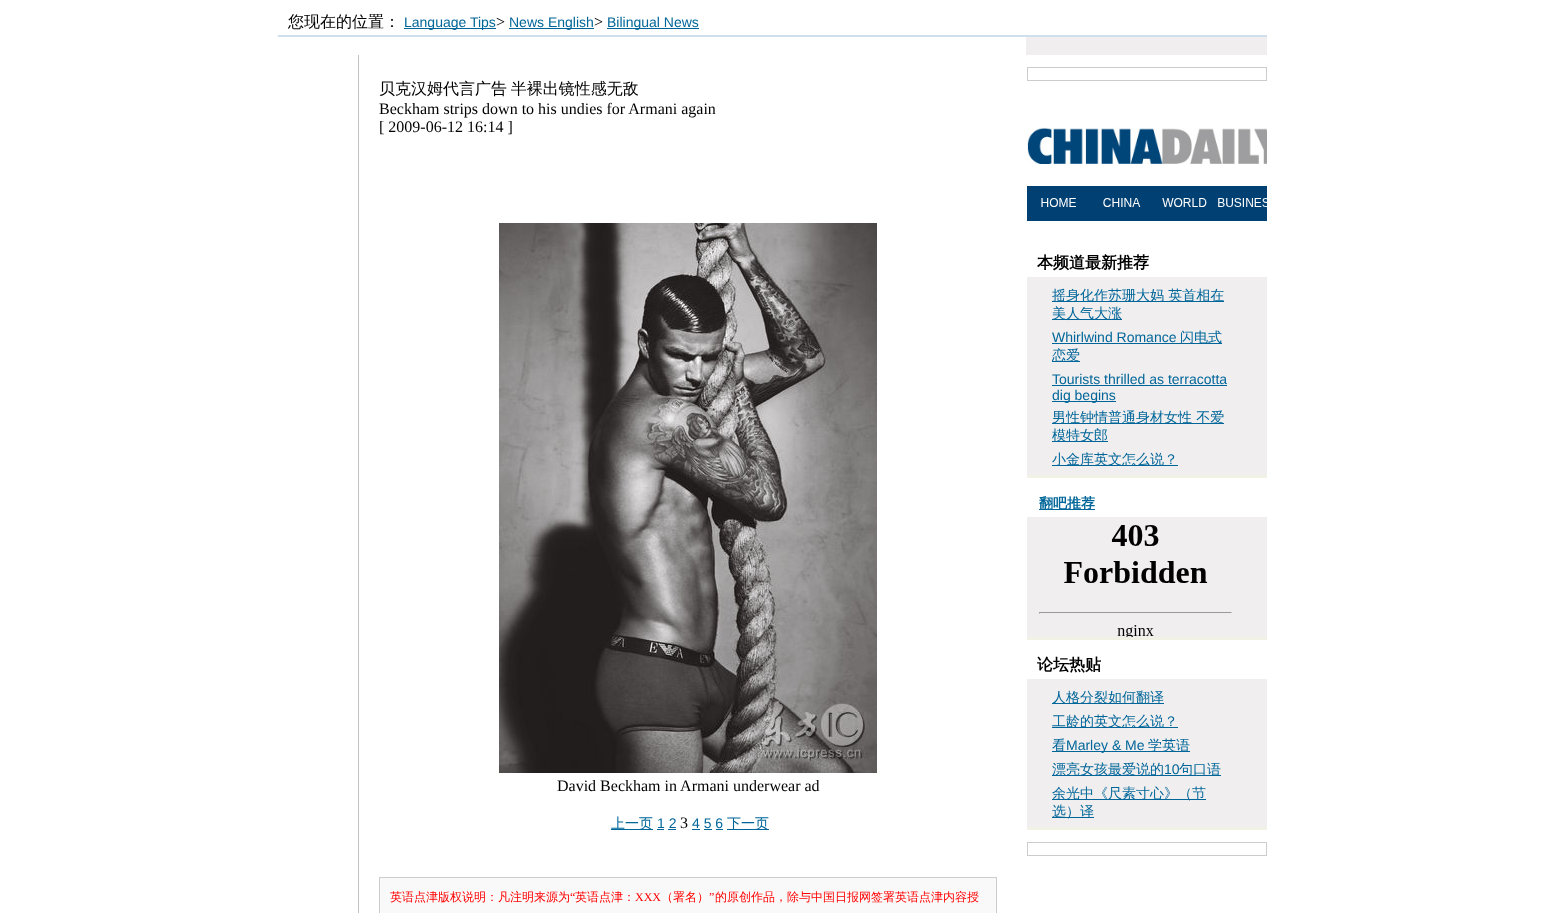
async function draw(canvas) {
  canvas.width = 1545
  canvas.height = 913
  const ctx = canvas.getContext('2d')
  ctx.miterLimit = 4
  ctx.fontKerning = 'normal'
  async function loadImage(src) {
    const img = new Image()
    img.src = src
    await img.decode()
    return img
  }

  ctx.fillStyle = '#fff'
  ctx.fillRect(0, 0, 1545, 913)
  ctx.font = '500 16px WenQuanYi Zen Hei'
  ctx.fillStyle = '#000'
  ctx.fillText('您现在的位置：', 288, 27)
  ctx.fillStyle = '#069'
  ctx.fillRect(404, 28, 92, 1)
  ctx.font = '14px Liberation Sans'
  ctx.fillText('Language Tips', 404, 27)
  ctx.font = '16px Liberation Serif'
  ctx.fillStyle = '#000'
  ctx.fillText('>', 496, 27)
  ctx.fillStyle = '#069'
  ctx.fillRect(509, 28, 85, 1)
  ctx.font = '14px Liberation Sans'
  ctx.fillText('News English', 509, 27)
  ctx.font = '16px Liberation Serif'
  ctx.fillStyle = '#000'
  ctx.fillText('>', 594, 27)
  ctx.fillStyle = '#069'
  ctx.fillRect(607, 28, 92, 1)
  ctx.font = '14px Liberation Sans'
  ctx.fillText('Bilingual News', 607, 27)
  ctx.fillStyle = '#cfdfeb'
  ctx.fillRect(278, 35, 989, 2)
  ctx.fillStyle = '#f0eeef'
  ctx.fillRect(1026, 37, 241, 18)
  ctx.fillStyle = '#c0c0c0'
  ctx.fillRect(358, 55, 1, 858)
  ctx.wordSpacing = '-1px'
  ctx.font = '500 16px WenQuanYi Zen Hei'
  ctx.fillStyle = '#000'
  ctx.fillText('贝克汉姆代言广告 半裸出镜性感无敌', 379, 94)
  ctx.wordSpacing = '0px'
  ctx.font = '16px Liberation Serif'
  ctx.fillText('Beckham strips down to his undies for Armani again', 379, 114)
  ctx.fillText('[ 2009-06-12 16:14 ]', 379, 132)
  ctx.drawImage(await loadImage('image0.png'), 499, 223, 378, 550)
  ctx.fillText('David Beckham in Armani underwear ad', 557, 791)
  ctx.fillStyle = '#069'
  ctx.fillRect(611, 829, 42, 1)
  ctx.font = '500 14px WenQuanYi Zen Hei'
  ctx.fillText('上一页', 611, 828)
  ctx.font = '14px Liberation Sans'
  ctx.fillText('1 2', 657, 828)
  ctx.fillRect(657, 829, 7, 1)
  ctx.font = '16px Liberation Serif'
  ctx.fillStyle = '#000'
  ctx.fillText('3', 680, 828)
  ctx.font = '14px Liberation Sans'
  ctx.fillStyle = '#069'
  ctx.fillText('4 5 6', 692, 828)
  ctx.fillRect(692, 829, 8, 1)
  ctx.fillRect(727, 829, 42, 1)
  ctx.font = '500 14px WenQuanYi Zen Hei'
  ctx.fillText('下一页', 727, 828)
  ctx.fillRect(668, 829, 8, 1)
  ctx.fillRect(704, 829, 8, 1)
  ctx.fillRect(716, 829, 7, 1)
  ctx.fillStyle = '#ccc'
  ctx.fillRect(379, 877, 618, 36)
  ctx.fillStyle = '#f9f9f9'
  ctx.fillRect(380, 878, 616, 35)
  ctx.font = '500 12px WenQuanYi Zen Hei'
  ctx.fillStyle = '#f00'
  ctx.fillText('英语点津版权说明：凡注明来源为', 390, 901)
  ctx.font = '12px Liberation Serif'
  ctx.fillText('“', 570, 901)
  ctx.font = '500 12px WenQuanYi Zen Hei'
  ctx.fillText('英语点津：', 575, 901)
  ctx.font = '12px Liberation Serif'
  ctx.fillText('XXX', 635, 901)
  ctx.font = '500 12px WenQuanYi Zen Hei'
  ctx.fillText('（署名）', 661, 901)
  ctx.font = '12px Liberation Serif'
  ctx.fillText('”', 709, 901)
  ctx.font = '500 12px WenQuanYi Zen Hei'
  ctx.fillText('的原创作品，除与中国日报网签署英语点津内容授', 715, 901)
  ctx.strokeStyle = '#ccc'
  ctx.strokeRect(1027.5, 67.5, 239, 13)
  ctx.drawImage(await loadImage('image1.png'), 1027, 127, 240, 94)
  ctx.font = 'bold 16px WenQuanYi Zen Hei'
  ctx.fillStyle = '#000'
  ctx.fillText('本频道最新推荐', 1037, 268)
  ctx.fillStyle = '#f0eeef'
  ctx.fillRect(1027, 277, 240, 198)
  ctx.fillStyle = '#069'
  ctx.fillRect(1052, 301, 172, 1)
  ctx.font = '500 14px WenQuanYi Zen Hei'
  ctx.fillText('摇身化作苏珊大妈 英首相在', 1052, 300)
  ctx.fillRect(1052, 319, 70, 1)
  ctx.fillText('美人气大涨', 1052, 318)
  ctx.font = '14px Liberation Sans'
  ctx.fillText('Whirlwind Romance', 1052, 342)
  ctx.fillRect(1052, 343, 170, 1)
  ctx.font = '500 14px WenQuanYi Zen Hei'
  ctx.fillText('闪电式', 1180, 342)
  ctx.fillRect(1052, 361, 28, 1)
  ctx.fillText('恋爱', 1052, 360)
  ctx.font = '14px Liberation Sans'
  ctx.fillText('Tourists thrilled as terracotta', 1052, 384)
  ctx.fillRect(1052, 385, 175, 1)
  ctx.fillRect(1052, 401, 64, 1)
  ctx.fillText('dig begins', 1052, 400)
  ctx.fillRect(1052, 423, 172, 1)
  ctx.font = '500 14px WenQuanYi Zen Hei'
  ctx.fillText('男性钟情普通身材女性 不爱', 1052, 422)
  ctx.fillRect(1052, 441, 56, 1)
  ctx.fillText('模特女郎', 1052, 440)
  ctx.fillRect(1052, 465, 126, 1)
  ctx.fillText('小金库英文怎么说？', 1052, 464)
  ctx.fillStyle = '#f2f1e6'
  ctx.fillRect(1027, 475, 240, 3)
  ctx.fillStyle = '#069'
  ctx.fillRect(1039, 509, 56, 1)
  ctx.font = 'bold 14px WenQuanYi Zen Hei'
  ctx.fillText('翻吧推荐', 1039, 508)
  ctx.fillStyle = '#f0eeef'
  ctx.fillRect(1027, 517, 240, 120)
  ctx.drawImage(await loadImage('image2.png'), 1039, 525, 193, 112)
  ctx.fillStyle = '#f2f1e6'
  ctx.fillRect(1027, 637, 240, 3)
  ctx.font = 'bold 16px WenQuanYi Zen Hei'
  ctx.fillStyle = '#000'
  ctx.fillText('论坛热贴', 1037, 670)
  ctx.fillStyle = '#f0eeef'
  ctx.fillRect(1027, 679, 240, 148)
  ctx.fillStyle = '#069'
  ctx.fillRect(1052, 703, 112, 1)
  ctx.font = '500 14px WenQuanYi Zen Hei'
  ctx.fillText('人格分裂如何翻译', 1052, 702)
  ctx.fillRect(1052, 727, 126, 1)
  ctx.fillText('工龄的英文怎么说？', 1052, 726)
  ctx.fillRect(1052, 751, 138, 1)
  ctx.fillText('看', 1052, 750)
  ctx.font = '14px Liberation Sans'
  ctx.fillText('Marley & Me', 1066, 750)
  ctx.font = '500 14px WenQuanYi Zen Hei'
  ctx.fillText('学英语', 1148, 750)
  ctx.fillRect(1052, 775, 169, 1)
  ctx.fillText('漂亮女孩最爱说的', 1052, 774)
  ctx.font = '14px Liberation Sans'
  ctx.fillText('10', 1164, 774)
  ctx.font = '500 14px WenQuanYi Zen Hei'
  ctx.fillText('句口语', 1179, 774)
  ctx.fillRect(1052, 799, 154, 1)
  ctx.fillText('余光中《尺素寸心》（节', 1052, 798)
  ctx.fillRect(1052, 817, 42, 1)
  ctx.fillText('选）译', 1052, 816)
  ctx.fillStyle = '#f2f1e6'
  ctx.fillRect(1027, 827, 240, 3)
  ctx.strokeRect(1027.5, 842.5, 239, 13)
}

draw(document.querySelector('canvas'))
